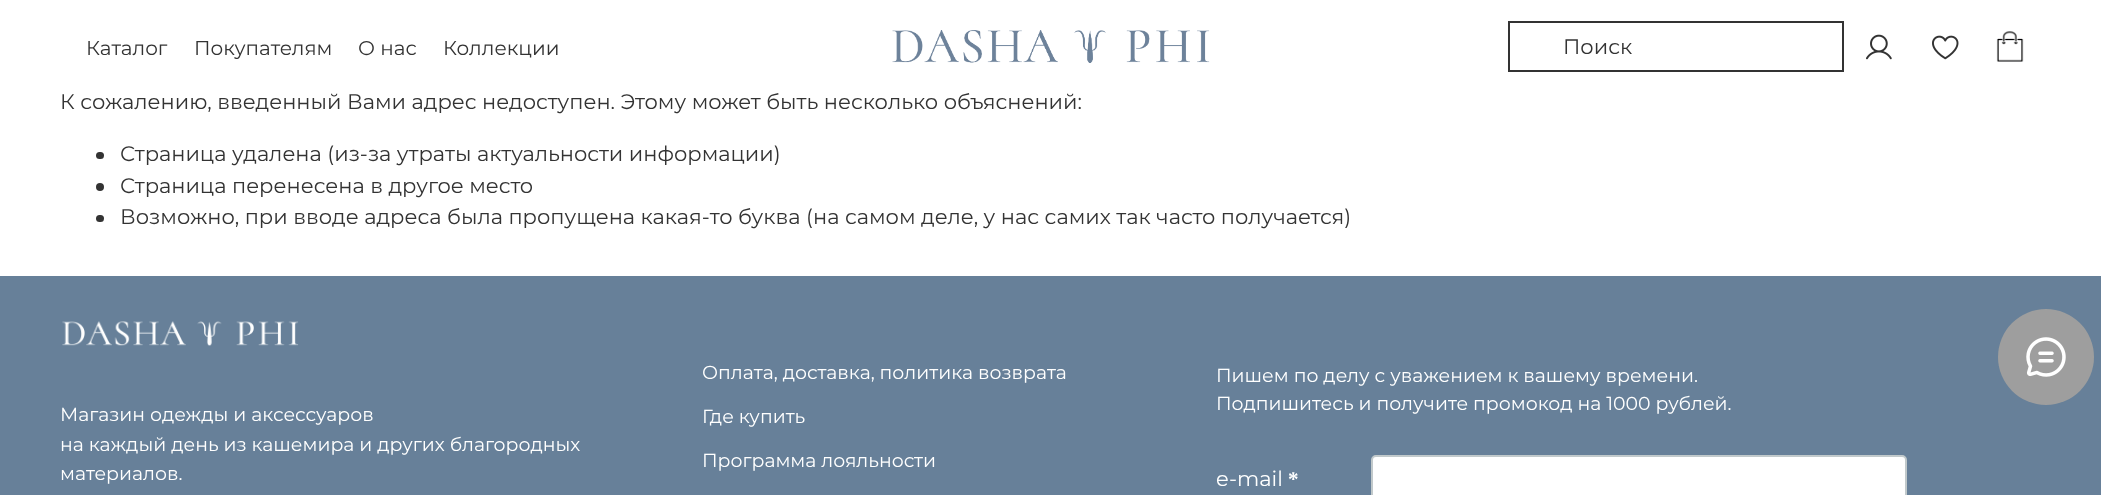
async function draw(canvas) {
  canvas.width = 2101
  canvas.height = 495
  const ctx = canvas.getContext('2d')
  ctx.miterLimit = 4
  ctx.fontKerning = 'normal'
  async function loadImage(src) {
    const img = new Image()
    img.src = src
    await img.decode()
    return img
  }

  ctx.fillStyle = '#fff'
  ctx.fillRect(0, 0, 2101, 495)
  ctx.font = '20px Montserrat'
  ctx.fillStyle = '#333'
  ctx.fillText('Каталог', 86, 55)
  ctx.fillText('Покупателям', 194, 55)
  ctx.fillText('О нас', 358, 55)
  ctx.fillText('Коллекции', 443, 55)
  ctx.drawImage(await loadImage('image0.png'), 892, 30, 318, 33)
  ctx.strokeStyle = '#333'
  ctx.lineWidth = 2
  ctx.strokeRect(1509, 22, 334, 49)
  ctx.font = '21px Montserrat'
  ctx.fillText('Поиск', 1563, 54)
  ctx.drawImage(await loadImage('image1.png'), 1866, 34, 26, 26)
  ctx.drawImage(await loadImage('image2.png'), 1932, 35, 27, 25)
  ctx.drawImage(await loadImage('image3.png'), 1996, 31, 28, 31)
  ctx.fillText('К сожалению, введенный Вами адрес недоступен. Этому может быть несколько объяснений:', 60, 109)
  ctx.beginPath()
  ctx.roundRect(96, 152, 8, 7, 3.5)
  ctx.fill()
  ctx.fillText('Страница удалена (из-за утраты актуальности информации)', 120, 161)
  ctx.beginPath()
  ctx.arc(100, 187, 4, 0, 2 * Math.PI)
  ctx.fill()
  ctx.fillText('Страница перенесена в другое место', 120, 193)
  ctx.beginPath()
  ctx.roundRect(96, 215, 8, 7, 3.5)
  ctx.fill()
  ctx.fillText('Возможно, при вводе адреса была пропущена какая-то буква (на самом деле, у нас самих так часто получается)', 120, 224)
  ctx.fillStyle = '#678099'
  ctx.fillRect(0, 276, 2101, 219)
  ctx.drawImage(await loadImage('image4.png'), 62, 321, 237, 25)
  ctx.font = '18.9px Montserrat'
  ctx.fillStyle = '#fff'
  ctx.fillText('Магазин одежды и аксессуаров', 60, 421)
  ctx.fillText('на каждый день из кашемира и других благородных', 60, 451)
  ctx.fillText('материалов.', 60, 480)
  ctx.fillText('Оплата, доставка, политика возврата', 702, 379)
  ctx.fillText('Где купить', 702, 423)
  ctx.fillText('Программа лояльности', 702, 467)
  ctx.fillText('Пишем по делу с уважением к вашему времени.', 1216, 382)
  ctx.fillText('Подпишитесь и получите промокод на 1000 рублей.', 1216, 410)
  ctx.font = '21px Montserrat'
  ctx.fillText('e-mail', 1216, 486)
  ctx.font = 'bold 21px Liberation Serif'
  ctx.fillText('*', 1288, 486)
  ctx.beginPath()
  ctx.roundRect(1372, 456, 534, 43, 4)
  ctx.fill()
  ctx.strokeStyle = '#c1c9cb'
  ctx.stroke()
  ctx.fillStyle = '#9e9e9e'
  ctx.beginPath()
  ctx.arc(2046, 357, 48, 0, 2 * Math.PI)
  ctx.fill()
  ctx.drawImage(await loadImage('image5.png'), 2026, 337, 40, 40)
}

draw(document.querySelector('canvas'))
